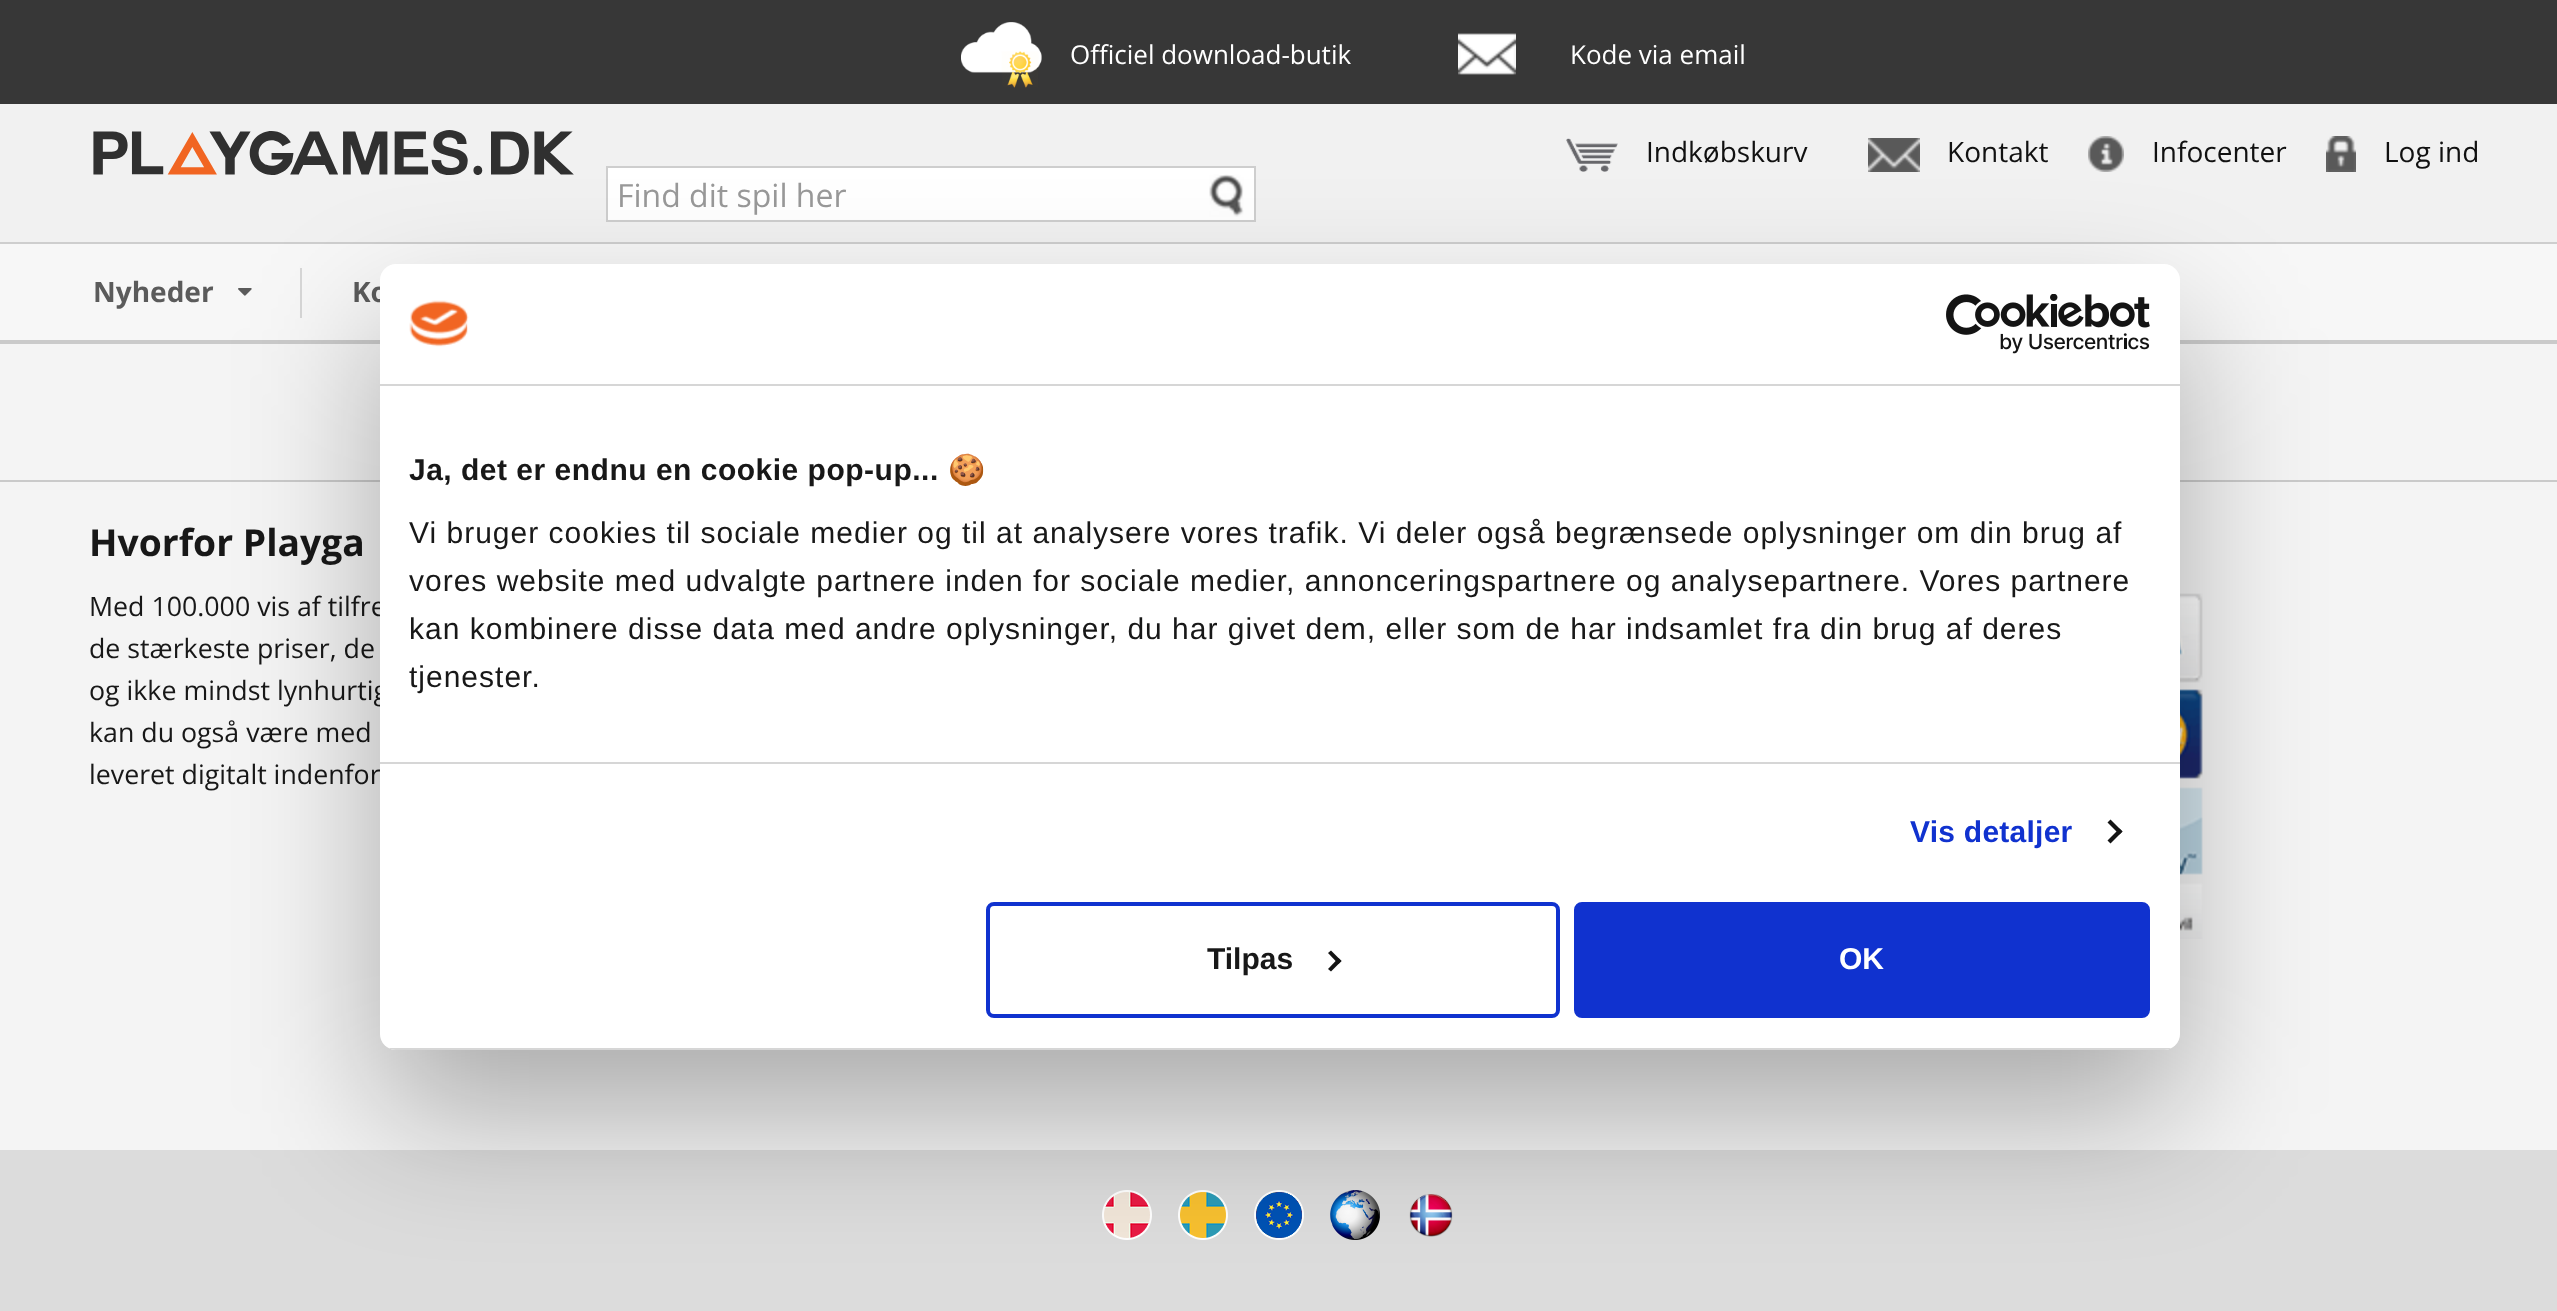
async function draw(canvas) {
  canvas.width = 2557
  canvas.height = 1311
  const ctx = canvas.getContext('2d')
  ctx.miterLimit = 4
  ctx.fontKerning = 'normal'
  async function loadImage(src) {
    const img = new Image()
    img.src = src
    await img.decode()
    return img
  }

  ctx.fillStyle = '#f4f4f4'
  ctx.fillRect(0, 0, 2557, 1311)
  ctx.fillStyle = '#f7f7f7'
  ctx.fillRect(0, 244, 2557, 96)
  ctx.fillStyle = '#373737'
  ctx.fillRect(0, 0, 2557, 104)
  ctx.drawImage(await loadImage('image0.png'), 961, 22, 81, 66)
  ctx.font = '26px Open Sans'
  ctx.fillStyle = '#fff'
  ctx.fillText('Officiel download-butik', 1070, 64)
  ctx.drawImage(await loadImage('image1.png'), 1458, 33, 58, 42)
  ctx.fillText('Kode via email', 1570, 64)
  ctx.fillStyle = '#f1f1f1'
  ctx.fillRect(0, 104, 2557, 138)
  ctx.fillStyle = '#cecece'
  ctx.fillRect(0, 242, 2557, 2)
  ctx.drawImage(await loadImage('image2.png'), 93, 130, 481, 45)
  ctx.drawImage(await loadImage('image3.png'), 1566, 138, 52, 34)
  ctx.font = '28px Open Sans'
  ctx.fillStyle = '#111'
  ctx.fillText('Indkøbskurv', 1646, 162)
  ctx.drawImage(await loadImage('image4.png'), 1868, 138, 52, 34)
  ctx.fillText('Kontakt', 1947, 162)
  ctx.drawImage(await loadImage('image5.png'), 2088, 136, 36, 36)
  ctx.fillText('Infocenter', 2152, 162)
  ctx.drawImage(await loadImage('image6.png'), 2326, 136, 30, 36)
  ctx.fillText('Log ind', 2384, 162)
  ctx.fillStyle = '#fff'
  ctx.fillRect(608, 168, 646, 52)
  ctx.drawImage(await loadImage('image7.png'), 1209, 174, 35, 43)
  ctx.strokeStyle = '#cecece'
  ctx.lineWidth = 2
  ctx.strokeRect(607, 167, 648, 54)
  ctx.font = '32px Open Sans'
  ctx.fillStyle = '#999'
  ctx.fillText('Find dit spil her', 617, 207)
  ctx.fillStyle = '#cacaca'
  ctx.fillRect(0, 340, 2557, 4)
  ctx.fillStyle = '#d7d7d7'
  ctx.fillRect(300, 268, 2, 50)
  ctx.font = 'bold 28px Open Sans'
  ctx.fillStyle = '#5b5b5b'
  ctx.fillText('Nyheder', 93, 302)
  ctx.drawImage(await loadImage('image8.png'), 238, 288, 14, 8)
  ctx.fillText('Ko', 352, 302)
  ctx.fillStyle = '#cacaca'
  ctx.fillRect(0, 480, 2557, 2)
  ctx.font = 'bold 37.25px Open Sans'
  ctx.fillStyle = '#181818'
  ctx.fillText('Hvorfor Playga', 89, 556)
  ctx.font = '26.75px Open Sans'
  ctx.fillText('Med 100.000 vis af tilfre', 89, 616)
  ctx.fillText('de stærkeste priser, de', 89, 658)
  ctx.fillText('og ikke mindst lynhurtig', 89, 700)
  ctx.fillText('kan du også være med', 89, 742)
  ctx.fillText('leveret digitalt indenfor', 89, 784)
  ctx.drawImage(await loadImage('image9.png'), 2180, 593, 23, 346)
  ctx.fillStyle = '#dcdcdc'
  ctx.fillRect(0, 1150, 2557, 161)
  ctx.drawImage(await loadImage('image10.png'), 1102, 1190, 50, 50)
  ctx.drawImage(await loadImage('image11.png'), 1178, 1190, 50, 50)
  ctx.drawImage(await loadImage('image12.png'), 1254, 1190, 50, 50)
  ctx.drawImage(await loadImage('image13.png'), 1330, 1190, 50, 50)
  ctx.drawImage(await loadImage('image14.png'), 1409, 1194, 44, 43)
  ctx.fillStyle = '#0000004d'
  ctx.filter = 'blur(68px)'
  ctx.beginPath()
  ctx.roundRect(380, 328, 1800, 786, 16)
  ctx.fill()
  ctx.filter = 'none'
  ctx.fillStyle = '#fff'
  ctx.beginPath()
  ctx.roundRect(380, 264, 1800, 786, 16)
  ctx.fill()
  ctx.fillStyle = '#d6d6d6'
  ctx.fillRect(380, 384, 1800, 2)
  ctx.drawImage(await loadImage('image15.png'), 409, 300, 60, 47)
  ctx.drawImage(await loadImage('image16.png'), 1946, 294, 204, 60)
  ctx.fillRect(380, 762, 1800, 2)
  ctx.letterSpacing = '0.5px'
  ctx.font = 'bold 30px Liberation Sans'
  ctx.fillStyle = '#181818'
  ctx.fillText('Ja, det er endnu en cookie pop-up...', 409, 480)
  ctx.font = 'bold 30px Noto Color Emoji'
  ctx.fillText('🍪', 948, 480)
  ctx.letterSpacing = '1px'
  ctx.font = '30px Liberation Sans'
  ctx.fillText('Vi bruger cookies til sociale medier og til at analysere vores trafik. Vi deler også begrænsede oplysninger om din brug af', 409, 543)
  ctx.fillText('vores website med udvalgte partnere inden for sociale medier, annonceringspartnere og analysepartnere. Vores partnere', 409, 591)
  ctx.fillText('kan kombinere disse data med andre oplysninger, du har givet dem, eller som de har indsamlet fra din brug af deres', 409, 639)
  ctx.fillText('tjenester.', 409, 687)
  ctx.letterSpacing = '0.25px'
  ctx.font = 'bold 30px Liberation Sans'
  ctx.fillStyle = '#1032cf'
  ctx.fillText('Vis detaljer', 1910, 842)
  ctx.fillStyle = '#141414'
  ctx.beginPath()
  ctx.moveTo(2110.5, 819.5)
  ctx.lineTo(2122.5, 831.5)
  ctx.lineTo(2119.5, 834.5)
  ctx.lineTo(2107.5, 822.5)
  ctx.closePath()
  ctx.fill()
  ctx.beginPath()
  ctx.moveTo(2119.5, 828.5)
  ctx.lineTo(2122.5, 831.5)
  ctx.lineTo(2110.5, 843.5)
  ctx.lineTo(2107.5, 840.5)
  ctx.closePath()
  ctx.fill()
  ctx.save()
  ctx.beginPath()
  ctx.roundRect(380, 264, 1800, 786, 16)
  ctx.clip()
  ctx.fillStyle = '#d6d6d6'
  ctx.fillRect(380, 1048, 1800, 2)
  ctx.restore()
  ctx.beginPath()
  ctx.roundRect(988, 904, 570, 112, 6)
  ctx.strokeStyle = '#1032cf'
  ctx.lineWidth = 4
  ctx.stroke()
  ctx.letterSpacing = '0px'
  ctx.fillStyle = '#181818'
  ctx.fillText('Tilpas', 1207, 969)
  ctx.fillStyle = '#141414'
  ctx.beginPath()
  ctx.moveTo(1331, 950.5)
  ctx.lineTo(1341.5, 961)
  ctx.lineTo(1338.5, 964)
  ctx.lineTo(1328, 953)
  ctx.closePath()
  ctx.fill()
  ctx.beginPath()
  ctx.moveTo(1338.5, 958)
  ctx.lineTo(1341.5, 961)
  ctx.lineTo(1331, 971.5)
  ctx.lineTo(1328, 969)
  ctx.closePath()
  ctx.fill()
  ctx.fillStyle = '#1032cf'
  ctx.beginPath()
  ctx.roundRect(1576, 904, 572, 112, 6)
  ctx.fill()
  ctx.stroke()
  ctx.fillStyle = '#fff'
  ctx.fillText('OK', 1839, 969)
}

draw(document.querySelector('canvas'))
